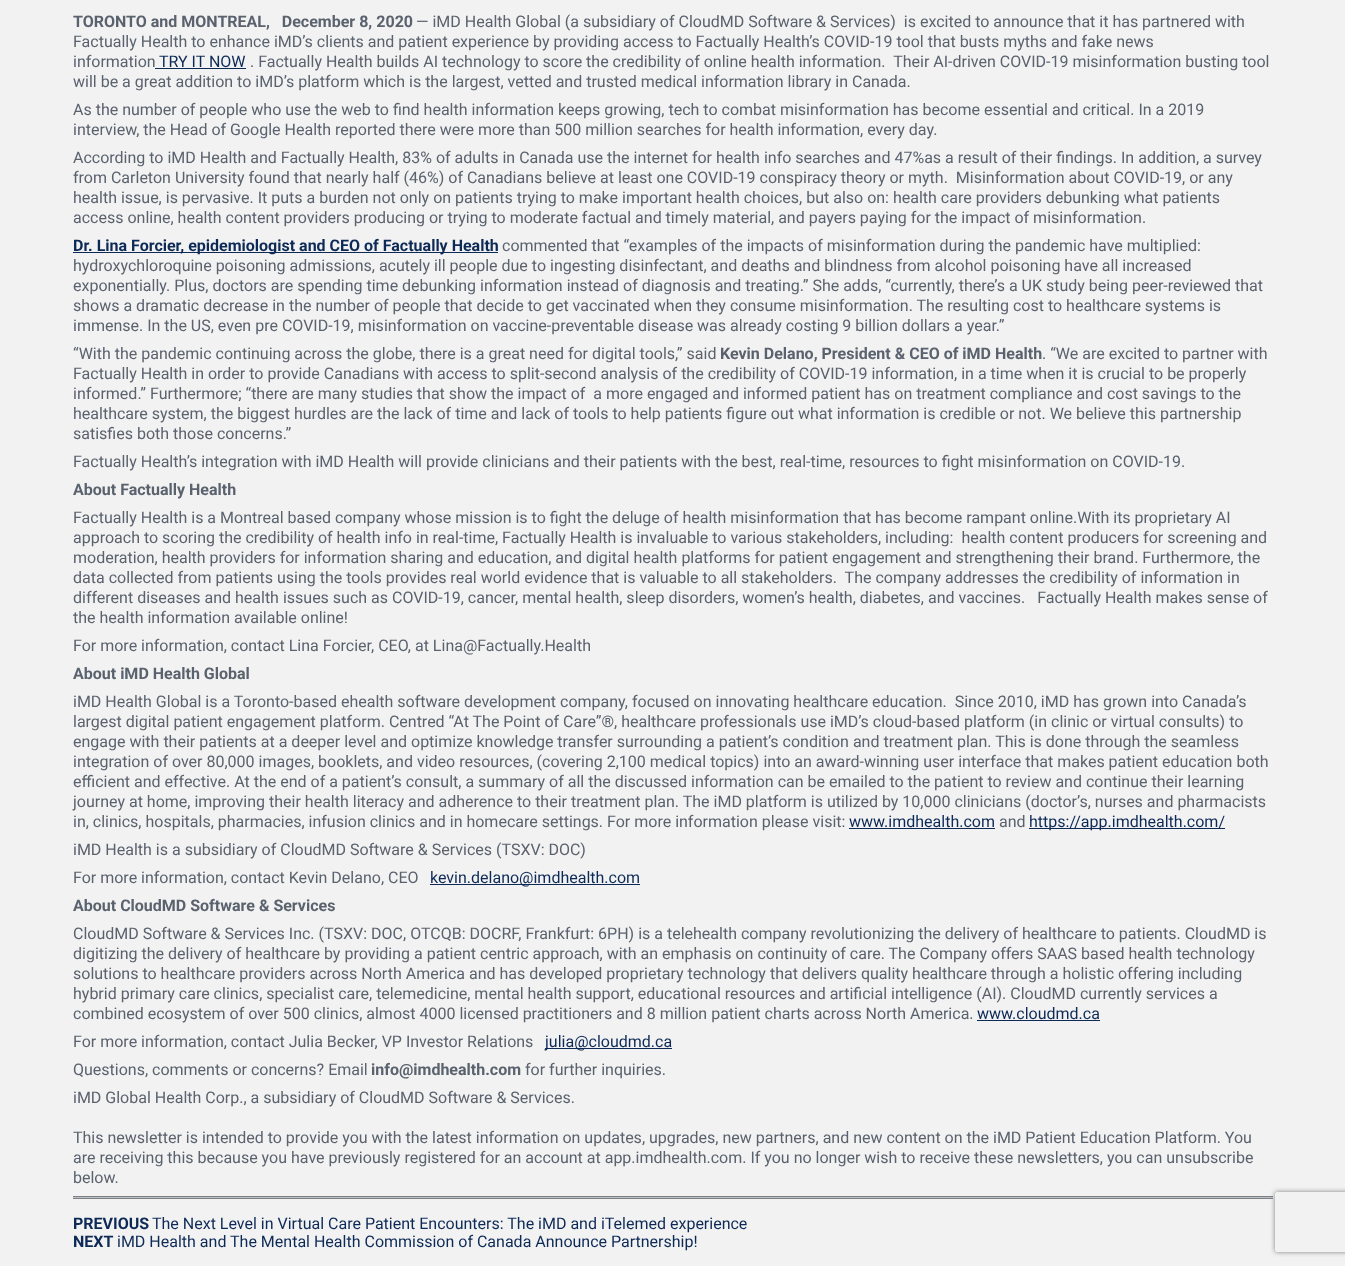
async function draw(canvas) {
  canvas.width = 1345
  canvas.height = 1266
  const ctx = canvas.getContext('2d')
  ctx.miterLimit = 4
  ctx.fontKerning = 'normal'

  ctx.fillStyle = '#f2f2f2'
  ctx.fillRect(0, 0, 1345, 1266)
  ctx.font = 'bold 16px Roboto'
  ctx.fillStyle = '#5a626e'
  ctx.fillText('TORONTO and MONTREAL,   December 8, 2020', 73, 27)
  ctx.font = '16px Roboto'
  ctx.fillText('— iMD Health Global (a subsidiary of CloudMD Software & Services)  is excited to announce that it has partnered with', 416, 27)
  ctx.fillText('Factually Health to enhance iMD’s clients and patient experience by providing access to Factually Health’s COVID-19 tool that busts myths and fake news', 73, 47)
  ctx.fillText('information', 73, 67)
  ctx.fillStyle = '#0d2a57'
  ctx.fillText('TRY IT NOW', 159, 67)
  ctx.fillRect(155, 68, 91, 1)
  ctx.fillStyle = '#5a626e'
  ctx.fillText('. Factually Health builds AI technology to score the credibility of online health information.  Their AI-driven COVID-19 misinformation busting tool', 250, 67)
  ctx.fillText('will be a great addition to iMD’s platform which is the largest, vetted and trusted medical information library in Canada.', 73, 87)
  ctx.fillText('As the number of people who use the web to find health information keeps growing, tech to combat misinformation has become essential and critical. In a 2019', 73, 115)
  ctx.fillText('interview, the Head of Google Health reported there were more than 500 million searches for health information, every day.', 73, 135)
  ctx.fillText('According to iMD Health and Factually Health, 83% of adults in Canada use the internet for health info searches and 47%as a result of their findings. In addition, a survey', 73, 163)
  ctx.fillText('from Carleton University found that nearly half (46%) of Canadians believe at least one COVID-19 conspiracy theory or myth.  Misinformation about COVID-19, or any', 73, 183)
  ctx.fillText('health issue, is pervasive. It puts a burden not only on patients trying to make important health choices, but also on: health care providers debunking what patients', 73, 203)
  ctx.fillText('access online, health content providers producing or trying to moderate factual and timely material, and payers paying for the impact of misinformation.', 73, 223)
  ctx.fillStyle = '#0d2a57'
  ctx.fillRect(73, 252, 425, 1)
  ctx.font = 'bold 16px Roboto'
  ctx.fillText('Dr. Lina Forcier, epidemiologist and CEO of Factually Health', 73, 251)
  ctx.font = '16px Roboto'
  ctx.fillStyle = '#5a626e'
  ctx.fillText('commented that “examples of the impacts of misinformation during the pandemic have multiplied:', 502, 251)
  ctx.fillText('hydroxychloroquine poisoning admissions, acutely ill people due to ingesting disinfectant, and deaths and blindness from alcohol poisoning have all increased', 73, 271)
  ctx.fillText('exponentially. Plus, doctors are spending time debunking information instead of diagnosis and treating.” She adds, “currently, there’s a UK study being peer-reviewed that', 73, 291)
  ctx.fillText('shows a dramatic decrease in the number of people that decide to get vaccinated when they consume misinformation. The resulting cost to healthcare systems is', 73, 311)
  ctx.fillText('immense. In the US, even pre COVID-19, misinformation on vaccine-preventable disease was already costing 9 billion dollars a year.”', 73, 331)
  ctx.fillText('“With the pandemic continuing across the globe, there is a great need for digital tools,” said', 73, 359)
  ctx.font = 'bold 16px Roboto'
  ctx.fillText('Kevin Delano, President & CEO of iMD Health', 720, 359)
  ctx.font = '16px Roboto'
  ctx.fillText('. “We are excited to partner with', 1042, 359)
  ctx.fillText('Factually Health in order to provide Canadians with access to split-second analysis of the credibility of COVID-19 information, in a time when it is crucial to be properly', 73, 379)
  ctx.fillText('informed.” Furthermore; “there are many studies that show the impact of  a more engaged and informed patient has on treatment compliance and cost savings to the', 73, 399)
  ctx.fillText('healthcare system, the biggest hurdles are the lack of time and lack of tools to help patients figure out what information is credible or not. We believe this partnership', 73, 419)
  ctx.fillText('satisfies both those concerns.”', 73, 439)
  ctx.fillText('Factually Health’s integration with iMD Health will provide clinicians and their patients with the best, real-time, resources to fight misinformation on COVID-19.', 73, 467)
  ctx.font = 'bold 16px Roboto'
  ctx.fillText('About Factually Health', 73, 495)
  ctx.font = '16px Roboto'
  ctx.fillText('Factually Health is a Montreal based company whose mission is to fight the deluge of health misinformation that has become rampant online.With its proprietary AI', 73, 523)
  ctx.fillText('approach to scoring the credibility of health info in real-time, Factually Health is invaluable to various stakeholders, including:  health content producers for screening and', 73, 543)
  ctx.fillText('moderation, health providers for information sharing and education, and digital health platforms for patient engagement and strengthening their brand. Furthermore, the', 73, 563)
  ctx.fillText('data collected from patients using the tools provides real world evidence that is valuable to all stakeholders.  The company addresses the credibility of information in', 73, 583)
  ctx.fillText('different diseases and health issues such as COVID-19, cancer, mental health, sleep disorders, women’s health, diabetes, and vaccines.   Factually Health makes sense of', 73, 603)
  ctx.fillText('the health information available online!', 73, 623)
  ctx.fillText('For more information, contact Lina Forcier, CEO, at Lina@Factually.Health', 73, 651)
  ctx.font = 'bold 16px Roboto'
  ctx.fillText('About iMD Health Global', 73, 679)
  ctx.font = '16px Roboto'
  ctx.fillText('iMD Health Global is a Toronto-based ehealth software development company, focused on innovating healthcare education.  Since 2010, iMD has grown into Canada’s', 73, 707)
  ctx.fillText('largest digital patient engagement platform. Centred “At The Point of Care”®, healthcare professionals use iMD’s cloud-based platform (in clinic or virtual consults) to', 73, 727)
  ctx.fillText('engage with their patients at a deeper level and optimize knowledge transfer surrounding a patient’s condition and treatment plan. This is done through the seamless', 73, 747)
  ctx.fillText('integration of over 80,000 images, booklets, and video resources, (covering 2,100 medical topics) into an award-winning user interface that makes patient education both', 73, 767)
  ctx.fillText('efficient and effective. At the end of a patient’s consult, a summary of all the discussed information can be emailed to the patient to review and continue their learning', 73, 787)
  ctx.fillText('journey at home, improving their health literacy and adherence to their treatment plan. The iMD platform is utilized by 10,000 clinicians (doctor’s, nurses and pharmacists', 73, 807)
  ctx.fillText('in, clinics, hospitals, pharmacies, infusion clinics and in homecare settings. For more information please visit:', 73, 827)
  ctx.fillStyle = '#0d2a57'
  ctx.fillText('www.imdhealth.com', 849, 827)
  ctx.fillRect(849, 828, 146, 1)
  ctx.fillStyle = '#5a626e'
  ctx.fillText('and', 999, 827)
  ctx.fillStyle = '#0d2a57'
  ctx.fillRect(1029, 828, 196, 1)
  ctx.fillText('https://app.imdhealth.com/', 1029, 827)
  ctx.fillStyle = '#5a626e'
  ctx.fillText('iMD Health is a subsidiary of CloudMD Software & Services (TSXV: DOC)', 73, 855)
  ctx.fillText('For more information, contact Kevin Delano, CEO', 73, 883)
  ctx.fillStyle = '#0d2a57'
  ctx.fillRect(430, 884, 210, 1)
  ctx.fillText('kevin.delano@imdhealth.com', 430, 883)
  ctx.font = 'bold 16px Roboto'
  ctx.fillStyle = '#5a626e'
  ctx.fillText('About CloudMD Software & Services', 73, 911)
  ctx.font = '16px Roboto'
  ctx.fillText('CloudMD Software & Services Inc. (TSXV: DOC, OTCQB: DOCRF, Frankfurt: 6PH) is a telehealth company revolutionizing the delivery of healthcare to patients. CloudMD is', 73, 939)
  ctx.fillText('digitizing the delivery of healthcare by providing a patient centric approach, with an emphasis on continuity of care. The Company offers SAAS based health technology', 73, 959)
  ctx.fillText('solutions to healthcare providers across North America and has developed proprietary technology that delivers quality healthcare through a holistic offering including', 73, 979)
  ctx.fillText('hybrid primary care clinics, specialist care, telemedicine, mental health support, educational resources and artificial intelligence (AI). CloudMD currently services a', 73, 999)
  ctx.fillText('combined ecosystem of over 500 clinics, almost 4000 licensed practitioners and 8 million patient charts across North America.', 73, 1019)
  ctx.fillStyle = '#0d2a57'
  ctx.fillText('www.cloudmd.ca', 977, 1019)
  ctx.fillRect(977, 1020, 123, 1)
  ctx.fillStyle = '#5a626e'
  ctx.fillText('For more information, contact Julia Becker, VP Investor Relations', 73, 1047)
  ctx.fillStyle = '#0d2a57'
  ctx.fillRect(545, 1048, 127, 1)
  ctx.fillText('julia@cloudmd.ca', 545, 1047)
  ctx.fillStyle = '#5a626e'
  ctx.fillText('Questions, comments or concerns? Email', 73, 1075)
  ctx.font = 'bold 16px Roboto'
  ctx.fillText('info@imdhealth.com', 371, 1075)
  ctx.font = '16px Roboto'
  ctx.fillText('for further inquiries.', 525, 1075)
  ctx.fillText('iMD Global Health Corp., a subsidiary of CloudMD Software & Services.', 73, 1103)
  ctx.fillText('This newsletter is intended to provide you with the latest information on updates, upgrades, new partners, and new content on the iMD Patient Education Platform. You', 73, 1143)
  ctx.fillText('are receiving this because you have previously registered for an account at app.imdhealth.com. If you no longer wish to receive these newsletters, you can unsubscribe', 73, 1163)
  ctx.fillText('below.', 73, 1183)
  ctx.fillStyle = '#b8c2cc'
  ctx.fillRect(73, 1197, 1200, 1)
  ctx.fillStyle = '#808080'
  ctx.fillRect(73, 1196, 1200, 1)
  ctx.fillRect(73, 1198, 1200, 1)
  ctx.font = 'bold 16px Roboto'
  ctx.fillStyle = '#0d2a57'
  ctx.fillText('PREVIOUS', 73, 1229)
  ctx.font = '16px Roboto'
  ctx.fillText('The Next Level in Virtual Care Patient Encounters: The iMD and iTelemed experience', 152, 1229)
  ctx.font = 'bold 16px Roboto'
  ctx.fillText('NEXT', 73, 1247)
  ctx.font = '16px Roboto'
  ctx.fillText('iMD Health and The Mental Health Commission of Canada Announce Partnership!', 117, 1247)
  ctx.save()
  ctx.beginPath()
  ctx.moveTo(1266, 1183)
  ctx.lineTo(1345, 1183)
  ctx.lineTo(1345, 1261)
  ctx.lineTo(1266, 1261)
  ctx.closePath()
  ctx.moveTo(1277, 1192)
  ctx.lineTo(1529, 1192)
  ctx.bezierCurveTo(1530, 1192, 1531, 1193, 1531, 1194)
  ctx.lineTo(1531, 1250)
  ctx.bezierCurveTo(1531, 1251, 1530, 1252, 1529, 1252)
  ctx.lineTo(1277, 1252)
  ctx.bezierCurveTo(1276, 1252, 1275, 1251, 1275, 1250)
  ctx.lineTo(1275, 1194)
  ctx.bezierCurveTo(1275, 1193, 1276, 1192, 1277, 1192)
  ctx.closePath()
  ctx.clip('evenodd')
  ctx.fillStyle = '#808080'
  ctx.filter = 'blur(2.5px)'
  ctx.beginPath()
  ctx.roundRect(1275, 1192, 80, 60, 2)
  ctx.fill()
  ctx.filter = 'none'
  ctx.restore()
}

draw(document.querySelector('canvas'))
